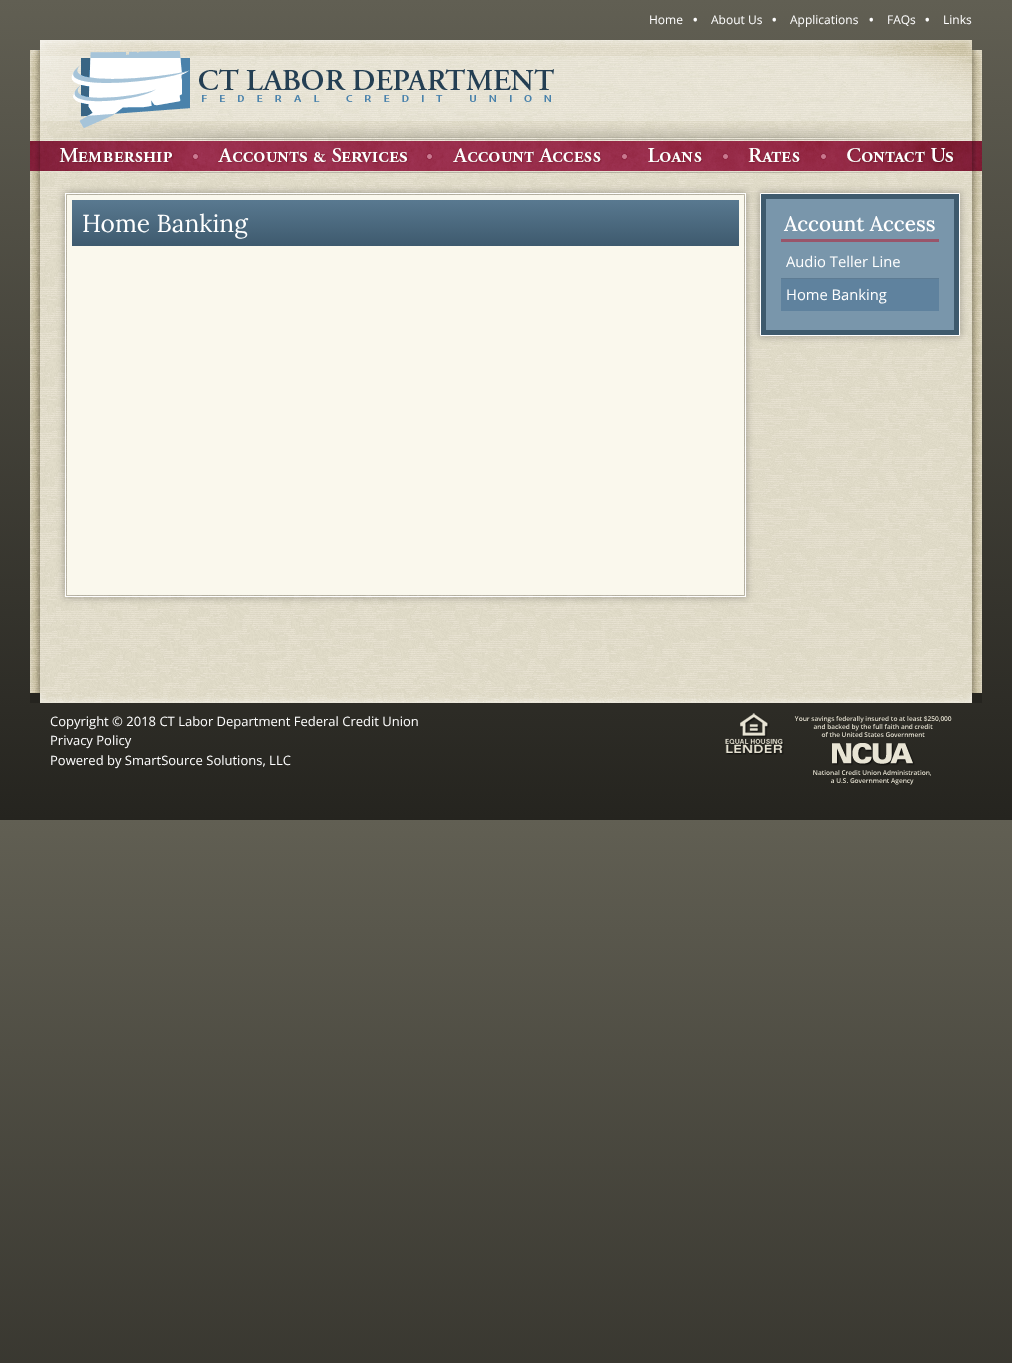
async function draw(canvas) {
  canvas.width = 1012
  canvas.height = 1363
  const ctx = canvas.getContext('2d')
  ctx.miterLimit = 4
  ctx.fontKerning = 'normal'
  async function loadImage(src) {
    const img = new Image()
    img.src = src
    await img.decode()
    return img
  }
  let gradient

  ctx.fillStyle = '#fff'
  ctx.fillRect(0, 0, 1012, 1363)
  gradient = ctx.createLinearGradient(506, 820, 506, 0)
  gradient.addColorStop(0, '#25241f')
  gradient.addColorStop(1, '#615f53')
  ctx.fillStyle = gradient
  ctx.fillRect(0, 0, 1012, 820)
  gradient = ctx.createLinearGradient(506, 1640, 506, 820)
  gradient.addColorStop(0, '#25241f')
  gradient.addColorStop(1, '#615f53')
  ctx.fillStyle = gradient
  ctx.fillRect(0, 820, 1012, 543)
  ctx.font = '12px Open Sans'
  ctx.fillStyle = '#fff'
  ctx.fillText('Home', 649, 24)
  ctx.font = 'bold 12px Open Sans'
  ctx.fillText('•', 693, 24)
  ctx.font = '12px Open Sans'
  ctx.fillText('About Us', 711, 24)
  ctx.font = 'bold 12px Open Sans'
  ctx.fillText('•', 772, 24)
  ctx.font = '12px Open Sans'
  ctx.fillText('Applications', 790, 24)
  ctx.font = 'bold 12px Open Sans'
  ctx.fillText('•', 869, 24)
  ctx.font = '12px Open Sans'
  ctx.fillText('FAQs', 887, 24)
  ctx.font = 'bold 12px Open Sans'
  ctx.fillText('•', 925, 24)
  ctx.font = '12px Open Sans'
  ctx.fillText('Links', 943, 24)
  ctx.drawImage(await loadImage('image0.png'), 30, 40, 952, 99)
  ctx.drawImage(await loadImage('image1.png'), 30, 139, 168, 34)
  ctx.drawImage(await loadImage('image2.png'), 198, 139, 234, 34)
  ctx.drawImage(await loadImage('image3.png'), 432, 139, 195, 34)
  ctx.drawImage(await loadImage('image4.png'), 627, 139, 101, 34)
  ctx.drawImage(await loadImage('image5.png'), 728, 139, 98, 34)
  ctx.drawImage(await loadImage('image6.png'), 826, 139, 156, 34)
  ctx.drawImage(await loadImage('image7.png'), 30, 173, 952, 520)
  ctx.fillStyle = '#00000040'
  ctx.filter = 'blur(3.5px)'
  ctx.beginPath()
  ctx.rect(64, 192, 683, 406)
  ctx.fill()
  ctx.filter = 'none'
  ctx.strokeStyle = '#fff'
  ctx.strokeRect(65.5, 193.5, 680, 403)
  ctx.fillStyle = '#faf8ed'
  ctx.fillRect(67, 195, 677, 400)
  gradient = ctx.createLinearGradient(406, 246, 406, 200)
  gradient.addColorStop(0, '#3e5a6e')
  gradient.addColorStop(1, '#597990')
  ctx.fillStyle = gradient
  ctx.fillRect(72, 200, 667, 46)
  ctx.font = '24.5px Lora'
  ctx.fillStyle = '#fff'
  ctx.fillText('Home Banking', 82, 232)
  ctx.fillStyle = '#00000040'
  ctx.filter = 'blur(3.5px)'
  ctx.beginPath()
  ctx.rect(759, 192, 202, 145)
  ctx.fill()
  ctx.filter = 'none'
  ctx.fillStyle = '#3e5a6d'
  ctx.beginPath()
  ctx.rect(760.5, 193.5, 199, 142)
  ctx.fill()
  ctx.stroke()
  ctx.fillStyle = '#7996ab'
  ctx.fillRect(766, 199, 188, 131)
  ctx.fillStyle = '#99556a'
  ctx.fillRect(781, 239, 158, 3)
  ctx.font = '500 20.75px Lora'
  ctx.fillStyle = '#fff'
  ctx.fillText('Account Access', 784, 231)
  ctx.fillStyle = '#5d7b93'
  ctx.fillRect(781, 278, 158, 1)
  ctx.font = '14.75px Open Sans'
  ctx.fillStyle = '#fff'
  ctx.fillText('Audio Teller Line', 786, 267)
  ctx.fillStyle = '#5f829e'
  ctx.fillRect(781, 279, 158, 32)
  ctx.fillStyle = '#fff'
  ctx.fillText('Home Banking', 786, 300)
  ctx.drawImage(await loadImage('image8.png'), 30, 693, 952, 10)
  ctx.font = '13px Open Sans'
  ctx.fillText('Copyright © 2018 CT Labor Department Federal Credit Union', 50, 726)
  ctx.fillText('Privacy Policy', 50, 745)
  ctx.fillText('Powered by SmartSource Solutions, LLC', 50, 765)
  ctx.drawImage(await loadImage('image9.png'), 725, 713, 59, 42)
  ctx.drawImage(await loadImage('image10.png'), 794, 716, 158, 69)
}

draw(document.querySelector('canvas'))
